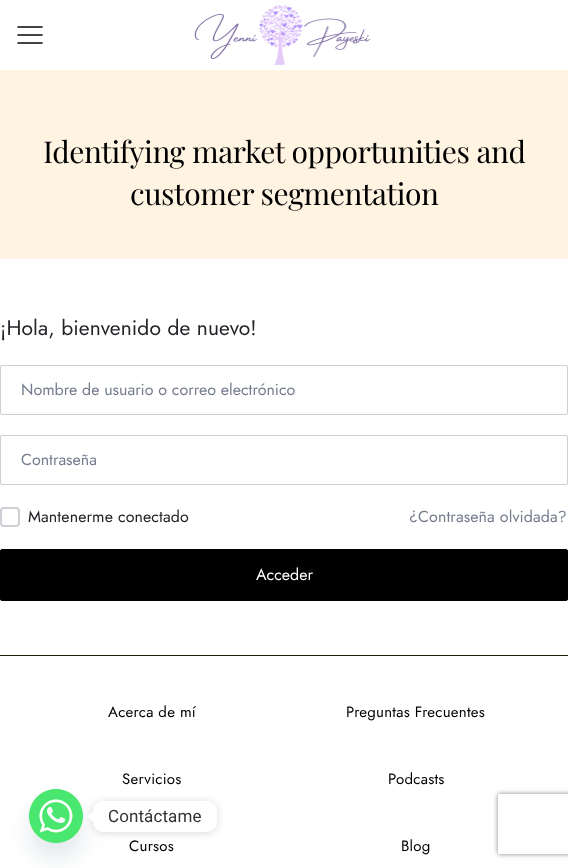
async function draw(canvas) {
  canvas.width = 568
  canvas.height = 868
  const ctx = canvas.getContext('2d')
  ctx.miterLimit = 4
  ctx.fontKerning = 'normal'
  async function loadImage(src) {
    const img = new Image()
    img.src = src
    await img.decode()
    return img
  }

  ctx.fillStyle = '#fff'
  ctx.fillRect(0, 0, 568, 868)
  ctx.drawImage(await loadImage('image0.png'), 17, 26, 26, 18)
  ctx.drawImage(await loadImage('image1.png'), 194, 5, 177, 60)
  ctx.fillStyle = '#fff3e1'
  ctx.fillRect(0, 70, 568, 189)
  ctx.letterSpacing = '-0.45px'
  ctx.font = '30px Playfair Display'
  ctx.fillStyle = '#000'
  ctx.fillText('Identifying market opportunities and', 43, 163)
  ctx.fillText('customer segmentation', 130, 205)
  ctx.letterSpacing = '0.1px'
  ctx.font = '21px Jost'
  ctx.fillStyle = '#212327'
  ctx.fillText('¡Hola, bienvenido de nuevo!', 0, 335)
  ctx.beginPath()
  ctx.roundRect(0.5, 365.5, 567, 49, 1.5)
  ctx.strokeStyle = '#cdcfd5'
  ctx.stroke()
  ctx.letterSpacing = '0px'
  ctx.font = '16px Jost'
  ctx.fillStyle = '#757c8e'
  ctx.fillText('Nombre de usuario o correo electrónico', 21, 395)
  ctx.beginPath()
  ctx.roundRect(0.5, 435.5, 567, 49, 1.5)
  ctx.stroke()
  ctx.fillText('Contraseña', 21, 465)
  ctx.beginPath()
  ctx.roundRect(1, 508, 18, 18, 3)
  ctx.lineWidth = 2
  ctx.stroke()
  ctx.letterSpacing = '0.1px'
  ctx.fillStyle = '#212327'
  ctx.fillText('Mantenerme conectado', 28, 522)
  ctx.fillStyle = '#757c8e'
  ctx.fillText('¿Contraseña olvidada?', 409, 522)
  ctx.fillStyle = '#000'
  ctx.beginPath()
  ctx.roundRect(0.5, 549.5, 567, 51, 1.5)
  ctx.fill()
  ctx.strokeStyle = '#000'
  ctx.lineWidth = 1
  ctx.stroke()
  ctx.letterSpacing = '0px'
  ctx.fillStyle = '#fff'
  ctx.fillText('Acceder', 256, 580)
  ctx.fillStyle = '#221b0b'
  ctx.fillRect(0, 655, 568, 1)
  ctx.letterSpacing = '0.25px'
  ctx.font = '15px Jost'
  ctx.fillStyle = '#000'
  ctx.fillText('Acerca de mí', 108, 717)
  ctx.fillText('Servicios', 122, 784)
  ctx.fillText('Cursos', 129, 851)
  ctx.fillText('Preguntas Frecuentes', 346, 717)
  ctx.fillText('Podcasts', 388, 784)
  ctx.fillText('Blog', 401, 851)
  ctx.fillStyle = '#49687e29'
  ctx.filter = 'blur(12px)'
  ctx.beginPath()
  ctx.roundRect(29, 805, 54, 54, 27)
  ctx.fill()
  ctx.filter = 'none'
  ctx.drawImage(await loadImage('image2.png'), 29, 789, 54, 54)
  ctx.fillStyle = '#00000026'
  ctx.filter = 'blur(4px)'
  ctx.beginPath()
  ctx.roundRect(93, 802, 124, 31, 10)
  ctx.fill()
  ctx.filter = 'none'
  ctx.fillStyle = '#fff'
  ctx.beginPath()
  ctx.roundRect(93, 801, 124, 31, 10)
  ctx.fill()
  ctx.beginPath()
  ctx.moveTo(93, 811.5)
  ctx.lineTo(93, 821.5)
  ctx.lineTo(88, 816.5)
  ctx.closePath()
  ctx.fill()
  ctx.letterSpacing = '0.1px'
  ctx.font = '17px Roboto'
  ctx.fillStyle = '#333'
  ctx.fillText('Contáctame', 108, 822)
  ctx.save()
  ctx.beginPath()
  ctx.moveTo(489, 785)
  ctx.lineTo(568, 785)
  ctx.lineTo(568, 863)
  ctx.lineTo(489, 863)
  ctx.closePath()
  ctx.moveTo(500, 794)
  ctx.lineTo(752, 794)
  ctx.bezierCurveTo(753, 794, 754, 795, 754, 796)
  ctx.lineTo(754, 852)
  ctx.bezierCurveTo(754, 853, 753, 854, 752, 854)
  ctx.lineTo(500, 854)
  ctx.bezierCurveTo(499, 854, 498, 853, 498, 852)
  ctx.lineTo(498, 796)
  ctx.bezierCurveTo(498, 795, 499, 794, 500, 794)
  ctx.closePath()
  ctx.clip('evenodd')
  ctx.fillStyle = '#808080'
  ctx.filter = 'blur(2.5px)'
  ctx.beginPath()
  ctx.roundRect(498, 794, 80, 60, 2)
  ctx.fill()
  ctx.filter = 'none'
  ctx.restore()
}

draw(document.querySelector('canvas'))
